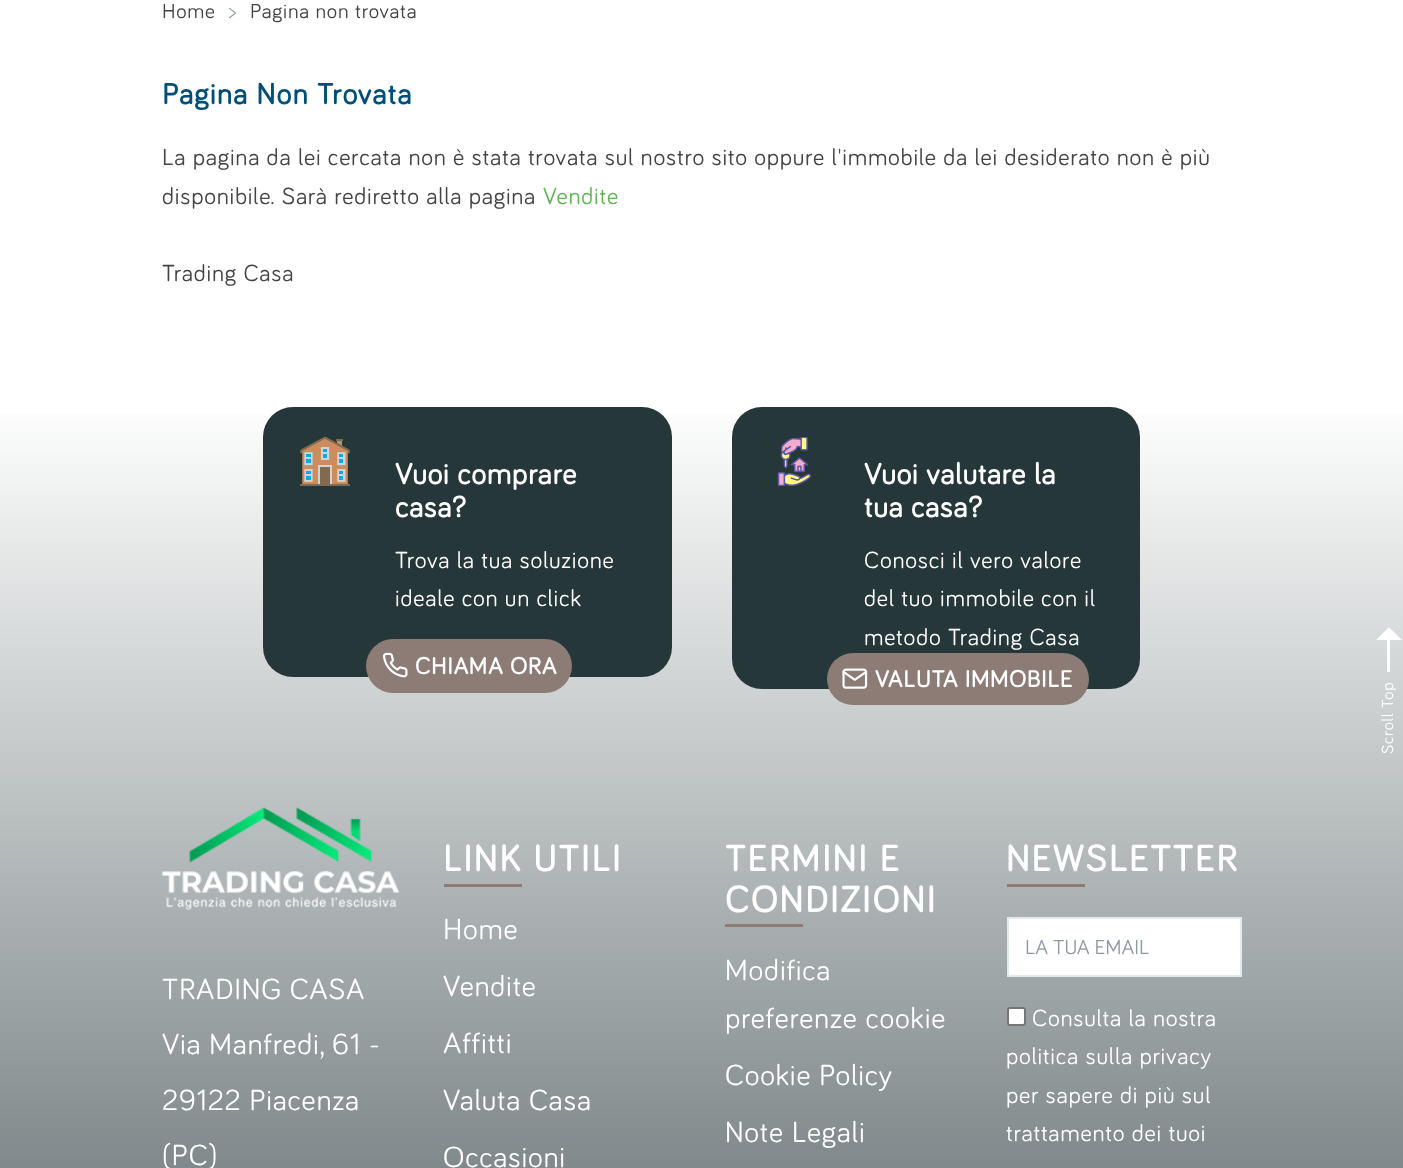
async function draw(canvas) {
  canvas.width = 1403
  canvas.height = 1168
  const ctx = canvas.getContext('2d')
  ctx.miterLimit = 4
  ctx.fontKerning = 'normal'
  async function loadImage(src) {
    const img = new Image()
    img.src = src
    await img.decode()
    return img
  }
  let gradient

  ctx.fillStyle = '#fff'
  ctx.fillRect(0, 0, 1403, 1168)
  ctx.letterSpacing = '0.78px'
  ctx.font = '21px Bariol'
  ctx.fillStyle = '#444'
  ctx.fillText('Home', 162, 18)
  ctx.fillStyle = '#8e99a3'
  ctx.fillText('>', 229, 18)
  ctx.fillStyle = '#444'
  ctx.fillText('Pagina non trovata', 250, 18)
  ctx.letterSpacing = '1.25px'
  ctx.font = 'bold 30px Bariol'
  ctx.fillStyle = '#004f78'
  ctx.fillText('Pagina Non Trovata', 162, 104)
  ctx.letterSpacing = '0.78px'
  ctx.font = '24px Bariol'
  ctx.fillStyle = '#444'
  ctx.fillText('La pagina da lei cercata non è stata trovata sul nostro sito oppure l\'immobile da lei desiderato non è più', 162, 165)
  ctx.fillText('disponibile. Sarà rediretto alla pagina', 162, 204)
  ctx.fillStyle = '#60b454'
  ctx.fillText('Vendite', 543, 204)
  ctx.fillStyle = '#444'
  ctx.fillText('Trading Casa', 162, 281)
  gradient = ctx.createLinearGradient(702, 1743, 702, 399)
  gradient.addColorStop(0, '#213134')
  gradient.addColorStop(1, '#fff')
  ctx.fillStyle = gradient
  ctx.fillRect(0, 414, 1403, 754)
  ctx.fillStyle = '#26373a'
  ctx.beginPath()
  ctx.roundRect(263, 407, 409, 270, 30)
  ctx.fill()
  ctx.drawImage(await loadImage('image0.png'), 300, 437, 50, 49)
  ctx.font = 'bold 30px Bariol'
  ctx.fillStyle = '#fff'
  ctx.fillText('Vuoi comprare', 395, 484)
  ctx.fillText('casa?', 395, 517)
  ctx.font = '24px Bariol'
  ctx.fillText('Trova la tua soluzione', 395, 568)
  ctx.fillText('ideale con un click', 395, 606)
  ctx.fillStyle = '#8d7b75'
  ctx.beginPath()
  ctx.roundRect(366, 639, 206, 54, 27)
  ctx.fill()
  ctx.drawImage(await loadImage('image1.png'), 383, 652, 25, 26)
  ctx.font = 'bold 24px Bariol'
  ctx.fillStyle = '#fff'
  ctx.fillText('CHIAMA ORA', 415, 674)
  ctx.fillStyle = '#26373a'
  ctx.beginPath()
  ctx.roundRect(732, 407, 408, 282, 30)
  ctx.fill()
  ctx.drawImage(await loadImage('image2.png'), 777, 437, 34, 49)
  ctx.font = 'bold 30px Bariol'
  ctx.fillStyle = '#fff'
  ctx.fillText('Vuoi valutare la', 864, 484)
  ctx.fillText('tua casa?', 864, 517)
  ctx.font = '24px Bariol'
  ctx.fillText('Conosci il vero valore', 864, 568)
  ctx.fillText('del tuo immobile con il', 864, 606)
  ctx.fillText('metodo Trading Casa', 864, 645)
  ctx.fillStyle = '#8d7b75'
  ctx.beginPath()
  ctx.roundRect(827, 653, 262, 52, 26)
  ctx.fill()
  ctx.drawImage(await loadImage('image3.png'), 842, 668, 26, 21)
  ctx.font = 'bold 24px Bariol'
  ctx.fillStyle = '#fff'
  ctx.fillText('VALUTA IMMOBILE', 875, 687)
  ctx.drawImage(await loadImage('image4.png'), 162, 807, 237, 103)
  ctx.font = '30px Bariol'
  ctx.fillText('TRADING CASA', 162, 999)
  ctx.fillText('Via Manfredi, 61 -', 162, 1054)
  ctx.fillText('29122 Piacenza', 162, 1110)
  ctx.fillText('(PC)', 162, 1165)
  ctx.letterSpacing = '2.1px'
  ctx.font = 'bold 37.5px Bariol'
  ctx.fillText('LINK UTILI', 443, 871)
  ctx.fillStyle = '#8d7b75'
  ctx.fillRect(444, 884, 78, 3)
  ctx.letterSpacing = '0.78px'
  ctx.font = '30px Bariol'
  ctx.fillStyle = '#fff'
  ctx.fillText('Home', 443, 939)
  ctx.fillText('Vendite', 443, 996)
  ctx.fillText('Affitti', 443, 1053)
  ctx.fillText('Valuta Casa', 443, 1110)
  ctx.fillText('Occasioni', 443, 1167)
  ctx.letterSpacing = '2.1px'
  ctx.font = 'bold 37.5px Bariol'
  ctx.fillText('TERMINI E', 725, 871)
  ctx.fillText('CONDIZIONI', 725, 912)
  ctx.fillStyle = '#8d7b75'
  ctx.fillRect(725, 924, 78, 3)
  ctx.letterSpacing = '0.78px'
  ctx.font = '30px Bariol'
  ctx.fillStyle = '#fff'
  ctx.fillText('Modifica', 725, 980)
  ctx.fillText('preferenze cookie', 725, 1028)
  ctx.fillText('Cookie Policy', 725, 1085)
  ctx.fillText('Note Legali', 725, 1142)
  ctx.letterSpacing = '2.1px'
  ctx.font = 'bold 37.5px Bariol'
  ctx.fillText('NEWSLETTER', 1006, 871)
  ctx.fillStyle = '#8d7b75'
  ctx.fillRect(1007, 884, 78, 3)
  ctx.fillStyle = '#fff'
  ctx.beginPath()
  ctx.rect(1008, 918, 233, 58)
  ctx.fill()
  ctx.strokeStyle = '#dfebee'
  ctx.lineWidth = 2
  ctx.stroke()
  ctx.letterSpacing = '0px'
  ctx.font = '21px Bariol'
  ctx.fillStyle = '#8e99a3'
  ctx.fillText('LA TUA EMAIL', 1025, 954)
  ctx.fillStyle = '#fff'
  ctx.beginPath()
  ctx.roundRect(1008, 1008, 17, 17, 2)
  ctx.fill()
  ctx.strokeStyle = '#767676'
  ctx.stroke()
  ctx.letterSpacing = '0.78px'
  ctx.font = '24px Bariol'
  ctx.fillText('Consulta la nostra', 1032, 1026)
  ctx.fillText('politica sulla privacy', 1006, 1064)
  ctx.fillText('per sapere di più sul', 1006, 1103)
  ctx.fillText('trattamento dei tuoi', 1006, 1141)
  ctx.beginPath()
  ctx.moveTo(1389, 627)
  ctx.lineTo(1402, 640)
  ctx.lineTo(1390, 640)
  ctx.lineTo(1390, 672)
  ctx.lineTo(1387, 672)
  ctx.lineTo(1387, 640)
  ctx.lineTo(1376, 640)
  ctx.closePath()
  ctx.fill()
  ctx.font = '16.5px Bariol'
  ctx.save()
  ctx.translate(1393, 754)
  ctx.rotate(-90 * Math.PI / 180)
  ctx.fillText('Scroll Top', 0, 0)
  ctx.restore()
}

draw(document.querySelector('canvas'))
